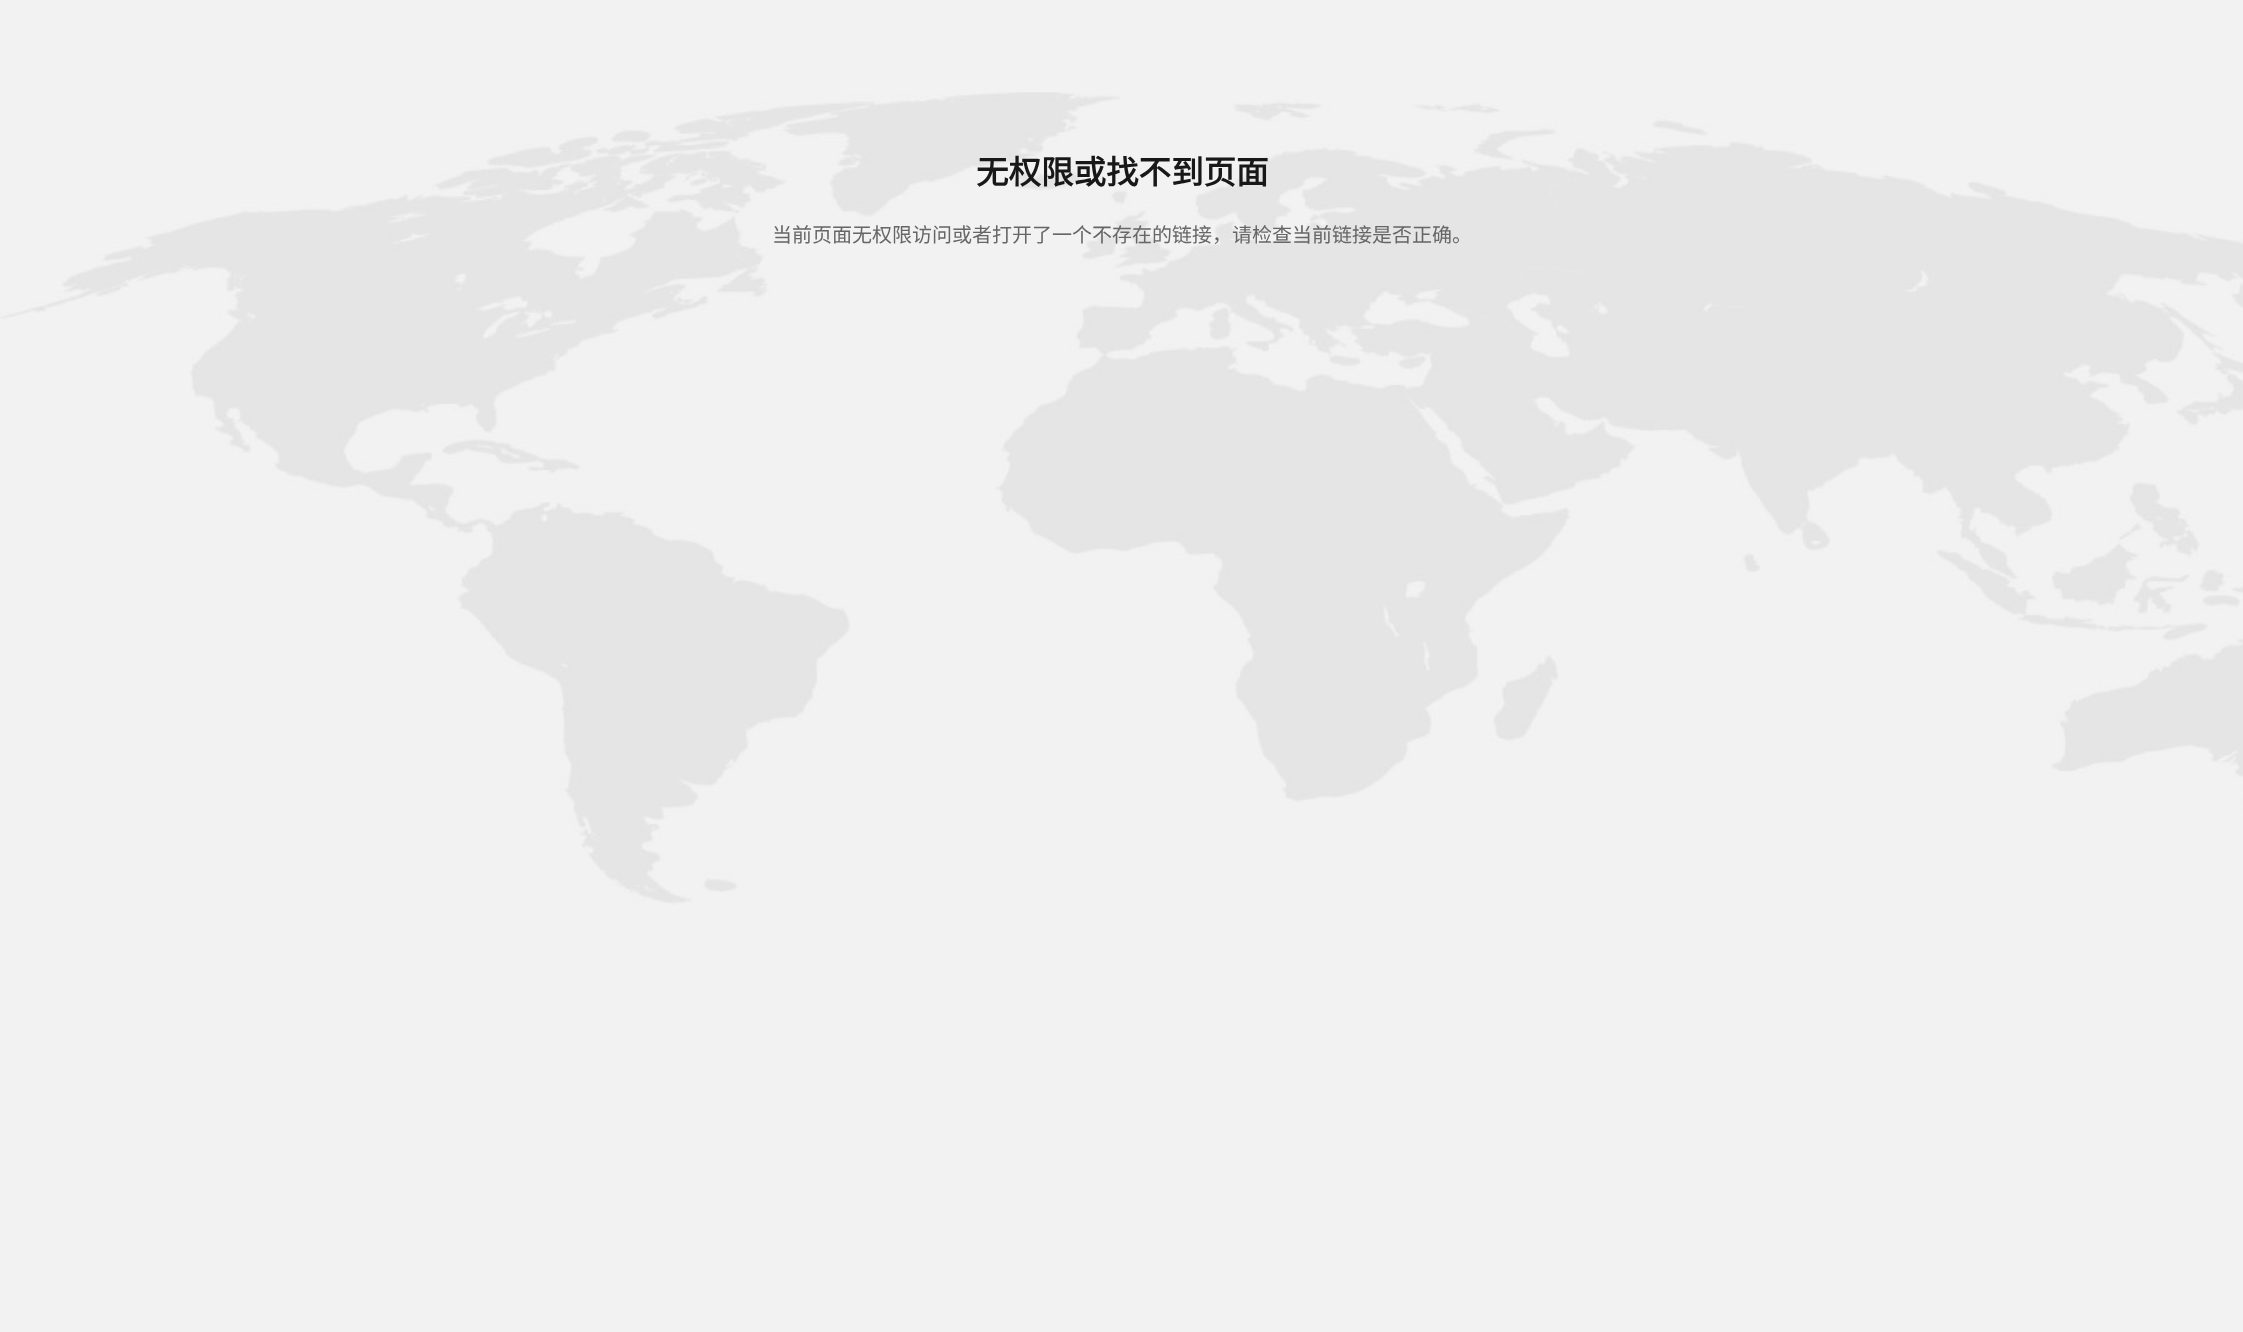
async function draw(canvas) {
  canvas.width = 2243
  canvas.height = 1332
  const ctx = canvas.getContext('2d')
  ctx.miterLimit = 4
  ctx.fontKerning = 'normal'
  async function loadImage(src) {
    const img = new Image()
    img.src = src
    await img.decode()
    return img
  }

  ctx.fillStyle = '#f2f2f2'
  ctx.fillRect(0, 0, 2243, 1332)
  ctx.drawImage(await loadImage('image0.png'), 0, 92, 2243, 813)
  ctx.font = 'bold 32.5px Noto Sans CJK SC'
  ctx.fillStyle = '#181818'
  ctx.fillText('无权限或找不到页面', 976, 184)
  ctx.font = '20px Noto Sans CJK SC'
  ctx.fillStyle = '#666'
  ctx.fillText('当前页面无权限访问或者打开了一个不存在的链接，请检查当前链接是否正确。', 772, 242)
}

draw(document.querySelector('canvas'))
